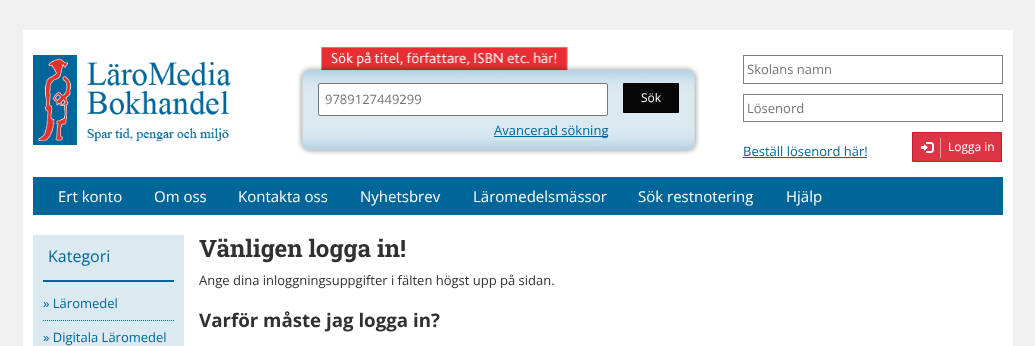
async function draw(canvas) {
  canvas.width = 1035
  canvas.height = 346
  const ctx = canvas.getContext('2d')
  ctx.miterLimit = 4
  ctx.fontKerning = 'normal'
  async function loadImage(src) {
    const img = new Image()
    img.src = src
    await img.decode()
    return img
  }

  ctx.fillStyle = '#f0f0f0'
  ctx.fillRect(0, 0, 1035, 346)
  ctx.fillStyle = '#fff'
  ctx.fillRect(23, 30, 990, 316)
  ctx.drawImage(await loadImage('image0.png'), 33, 55, 198, 90)
  ctx.drawImage(await loadImage('image1.png'), 298, 47, 402, 108)
  ctx.beginPath()
  ctx.roundRect(318.5, 83.5, 289, 32, 1.5)
  ctx.fill()
  ctx.strokeStyle = '#767676'
  ctx.stroke()
  ctx.font = '13px Open Sans'
  ctx.fillStyle = '#757575'
  ctx.fillText('9789127449299', 325, 104)
  ctx.fillStyle = '#080808'
  ctx.beginPath()
  ctx.rect(623.5, 83.5, 55, 29)
  ctx.fill()
  ctx.strokeStyle = '#000'
  ctx.stroke()
  ctx.font = '12px Open Sans'
  ctx.fillStyle = '#fff'
  ctx.fillText('Sök', 641, 102)
  ctx.fillStyle = '#069'
  ctx.fillRect(494, 136, 114, 1)
  ctx.font = '13px Open Sans'
  ctx.fillText('Avancerad sökning', 494, 135)
  ctx.strokeStyle = '#808080'
  ctx.strokeRect(743.5, 55.5, 259, 28)
  ctx.fillStyle = '#757575'
  ctx.fillText('Skolans namn', 747, 74)
  ctx.strokeRect(743.5, 94.5, 259, 27)
  ctx.fillText('Lösenord', 747, 113)
  ctx.fillStyle = '#069'
  ctx.fillText('Beställ lösenord här!', 743, 156)
  ctx.fillRect(743, 157, 124, 1)
  ctx.fillStyle = '#dc3545'
  ctx.beginPath()
  ctx.rect(912.5, 132.5, 89, 29)
  ctx.fill()
  ctx.strokeStyle = '#c81b29'
  ctx.stroke()
  ctx.fillStyle = '#ee9aa2'
  ctx.fillRect(940, 138, 1, 20)
  ctx.drawImage(await loadImage('image2.png'), 921, 142, 13, 11)
  ctx.font = '12px Open Sans'
  ctx.fillStyle = '#fff'
  ctx.fillText('Logga in', 948, 151)
  ctx.fillStyle = '#069'
  ctx.fillRect(33, 177, 970, 38)
  ctx.font = '15px Open Sans'
  ctx.fillStyle = '#fff'
  ctx.fillText('Ert konto', 58, 202)
  ctx.fillText('Om oss', 154, 202)
  ctx.fillText('Kontakta oss', 238, 202)
  ctx.fillText('Nyhetsbrev', 360, 202)
  ctx.fillText('Läromedelsmässor', 473, 202)
  ctx.fillText('Sök restnotering', 638, 202)
  ctx.fillText('Hjälp', 786, 202)
  ctx.fillStyle = '#dbe9f1'
  ctx.fillRect(33, 235, 151, 111)
  ctx.font = '16px Open Sans'
  ctx.fillStyle = '#069'
  ctx.fillText('Kategori', 48, 262)
  ctx.fillRect(43, 280, 131, 2)
  ctx.beginPath()
  ctx.moveTo(43, 320.5)
  ctx.lineTo(174, 320.5)
  ctx.strokeStyle = '#069'
  ctx.setLineDash([1, 1])
  ctx.stroke()
  ctx.font = '13px Open Sans'
  ctx.fillText('» Läromedel', 43, 308)
  ctx.fillText('» Digitala Läromedel', 43, 342)
  ctx.font = 'bold 24px Roboto Slab'
  ctx.fillStyle = '#303030'
  ctx.fillText('Vänligen logga in!', 199, 257)
  ctx.font = '13px Open Sans'
  ctx.fillText('Ange dina inloggningsuppgifter i fälten högst upp på sidan.', 199, 285)
  ctx.font = 'bold 18.7px Open Sans'
  ctx.fillText('Varför måste jag logga in?', 199, 327)
}

draw(document.querySelector('canvas'))
